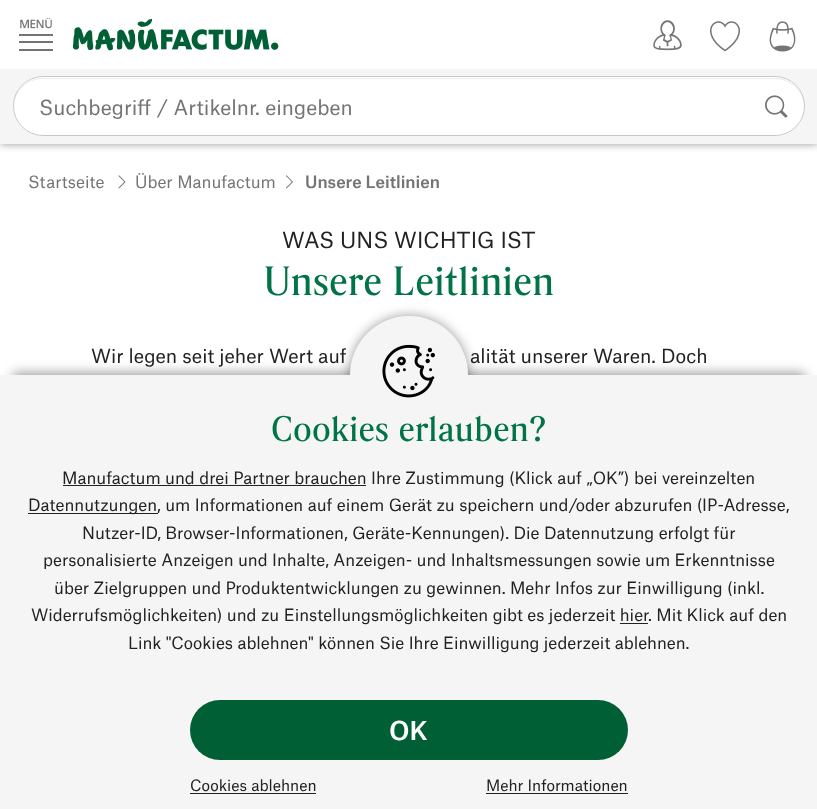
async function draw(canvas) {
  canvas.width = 817
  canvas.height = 809
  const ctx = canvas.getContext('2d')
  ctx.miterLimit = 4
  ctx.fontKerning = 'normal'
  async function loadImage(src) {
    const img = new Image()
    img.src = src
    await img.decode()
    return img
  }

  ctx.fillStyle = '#fff'
  ctx.fillRect(0, 0, 817, 809)
  ctx.save()
  ctx.beginPath()
  ctx.rect(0, 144, 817, 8)
  ctx.clip()
  ctx.fillStyle = '#999'
  ctx.filter = 'blur(4px)'
  ctx.beginPath()
  ctx.rect(0, 0, 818, 144)
  ctx.fill()
  ctx.filter = 'none'
  ctx.restore()
  ctx.drawImage(await loadImage('image0.png'), 19, 18, 34, 33)
  ctx.drawImage(await loadImage('image1.png'), 73, 18, 206, 33)
  ctx.drawImage(await loadImage('image2.png'), 653, 20, 29, 31)
  ctx.drawImage(await loadImage('image3.png'), 710, 21, 30, 31)
  ctx.drawImage(await loadImage('image4.png'), 769, 21, 27, 31)
  ctx.fillStyle = '#f5f5f5'
  ctx.fillRect(0, 69, 817, 75)
  ctx.fillStyle = '#fff'
  ctx.beginPath()
  ctx.roundRect(13, 76, 792, 60, 30)
  ctx.fill()
  ctx.fillStyle = '#ededed'
  ctx.beginPath()
  ctx.moveTo(42, 79)
  ctx.lineTo(775, 79)
  ctx.bezierCurveTo(791, 79, 804, 92, 804, 107)
  ctx.lineTo(804, 106)
  ctx.bezierCurveTo(804, 91, 791, 78, 776, 78)
  ctx.lineTo(42, 78)
  ctx.bezierCurveTo(27, 78, 14, 91, 14, 106)
  ctx.lineTo(14, 107)
  ctx.bezierCurveTo(14, 92, 27, 79, 42, 79)
  ctx.closePath()
  ctx.fill()
  ctx.beginPath()
  ctx.roundRect(13.5, 76.5, 791, 59, 29.5)
  ctx.strokeStyle = '#c8c8c8'
  ctx.stroke()
  ctx.font = '20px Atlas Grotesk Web'
  ctx.fillStyle = '#727476'
  ctx.fillText('Suchbegriff / Artikelnr. eingeben', 39, 115)
  ctx.drawImage(await loadImage('image5.png'), 765, 95, 23, 23)
  ctx.font = '16.25px Atlas Grotesk Web'
  ctx.fillText('Startseite', 28, 188)
  ctx.drawImage(await loadImage('image6.png'), 118, 175, 8, 14)
  ctx.fillText('Über Manufactum', 135, 188)
  ctx.drawImage(await loadImage('image7.png'), 286, 175, 7, 14)
  ctx.font = '500 16.25px Atlas Grotesk Web'
  ctx.fillText('Unsere Leitlinien', 305, 188)
  ctx.font = '21.25px Atlas Grotesk Web'
  ctx.fillStyle = '#222'
  ctx.fillText('WAS UNS WICHTIG IST', 282, 248)
  ctx.font = '500 38.75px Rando'
  ctx.fillStyle = '#017447'
  ctx.fillText('Unsere Leitlinien', 264, 295)
  ctx.font = '18.75px Atlas Grotesk Web'
  ctx.fillStyle = '#222'
  ctx.fillText('Wir legen seit jeher Wert auf', 91, 363)
  ctx.fillText('alität unserer Waren. Doch', 470, 363)
  ctx.fillStyle = '#00000066'
  ctx.filter = 'blur(6px)'
  ctx.beginPath()
  ctx.rect(13, 373, 792, 410)
  ctx.fill()
  ctx.filter = 'none'
  ctx.fillStyle = '#f5f5f5'
  ctx.fillRect(0, 375, 817, 434)
  ctx.save()
  ctx.beginPath()
  ctx.rect(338, 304, 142, 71)
  ctx.clip()
  ctx.fillStyle = '#00000066'
  ctx.filter = 'blur(6px)'
  ctx.beginPath()
  ctx.roundRect(350, 316, 118, 118, 59)
  ctx.fill()
  ctx.filter = 'none'
  ctx.restore()
  ctx.beginPath()
  ctx.roundRect(350, 316, 118, 59, [59, 59, 0, 0])
  ctx.fill()
  ctx.drawImage(await loadImage('image8.png'), 382, 344, 53, 54)
  ctx.font = '500 33.75px Rando'
  ctx.fillStyle = '#017447'
  ctx.fillText('Cookies erlauben?', 271, 441)
  ctx.fillStyle = '#222'
  ctx.fillRect(63, 485, 303, 1)
  ctx.font = '16.25px Atlas Grotesk Web'
  ctx.fillText('Manufactum und drei Partner brauchen Ihre Zustimmung (Klick auf „OK”) bei vereinzelten', 62, 484)
  ctx.fillRect(28, 513, 130, 1)
  ctx.fillText('Datennutzungen, um Informationen auf einem Gerät zu speichern und/oder abzurufen (IP-Adresse,', 28, 511)
  ctx.fillText('Nutzer-ID, Browser-Informationen, Geräte-Kennungen). Die Datennutzung erfolgt für', 82, 539)
  ctx.fillText('personalisierte Anzeigen und Inhalte, Anzeigen- und Inhaltsmessungen sowie um Erkenntnisse', 43, 566)
  ctx.fillText('über Zielgruppen und Produktentwicklungen zu gewinnen. Mehr Infos zur Einwilligung (inkl.', 54, 594)
  ctx.fillText('Widerrufsmöglichkeiten) und zu Einstellungsmöglichkeiten gibt es jederzeit hier', 31, 621)
  ctx.fillRect(620, 623, 28, 1)
  ctx.fillText('. Mit Klick auf den', 648, 621)
  ctx.fillText('Link "Cookies ablehnen" können Sie Ihre Einwilligung jederzeit ablehnen.', 128, 649)
  ctx.fillStyle = '#005f35'
  ctx.beginPath()
  ctx.roundRect(190, 700, 438, 60, 30)
  ctx.fill()
  ctx.font = '500 25px Atlas Grotesk Web'
  ctx.fillStyle = '#fff'
  ctx.fillText('OK', 389, 740)
  ctx.font = '15px Atlas Grotesk Web'
  ctx.fillStyle = '#222'
  ctx.fillText('Cookies ablehnen', 190, 791)
  ctx.fillRect(190, 793, 126, 1)
  ctx.fillText('Mehr Informationen', 486, 791)
  ctx.fillRect(486, 793, 142, 1)
}

draw(document.querySelector('canvas'))
